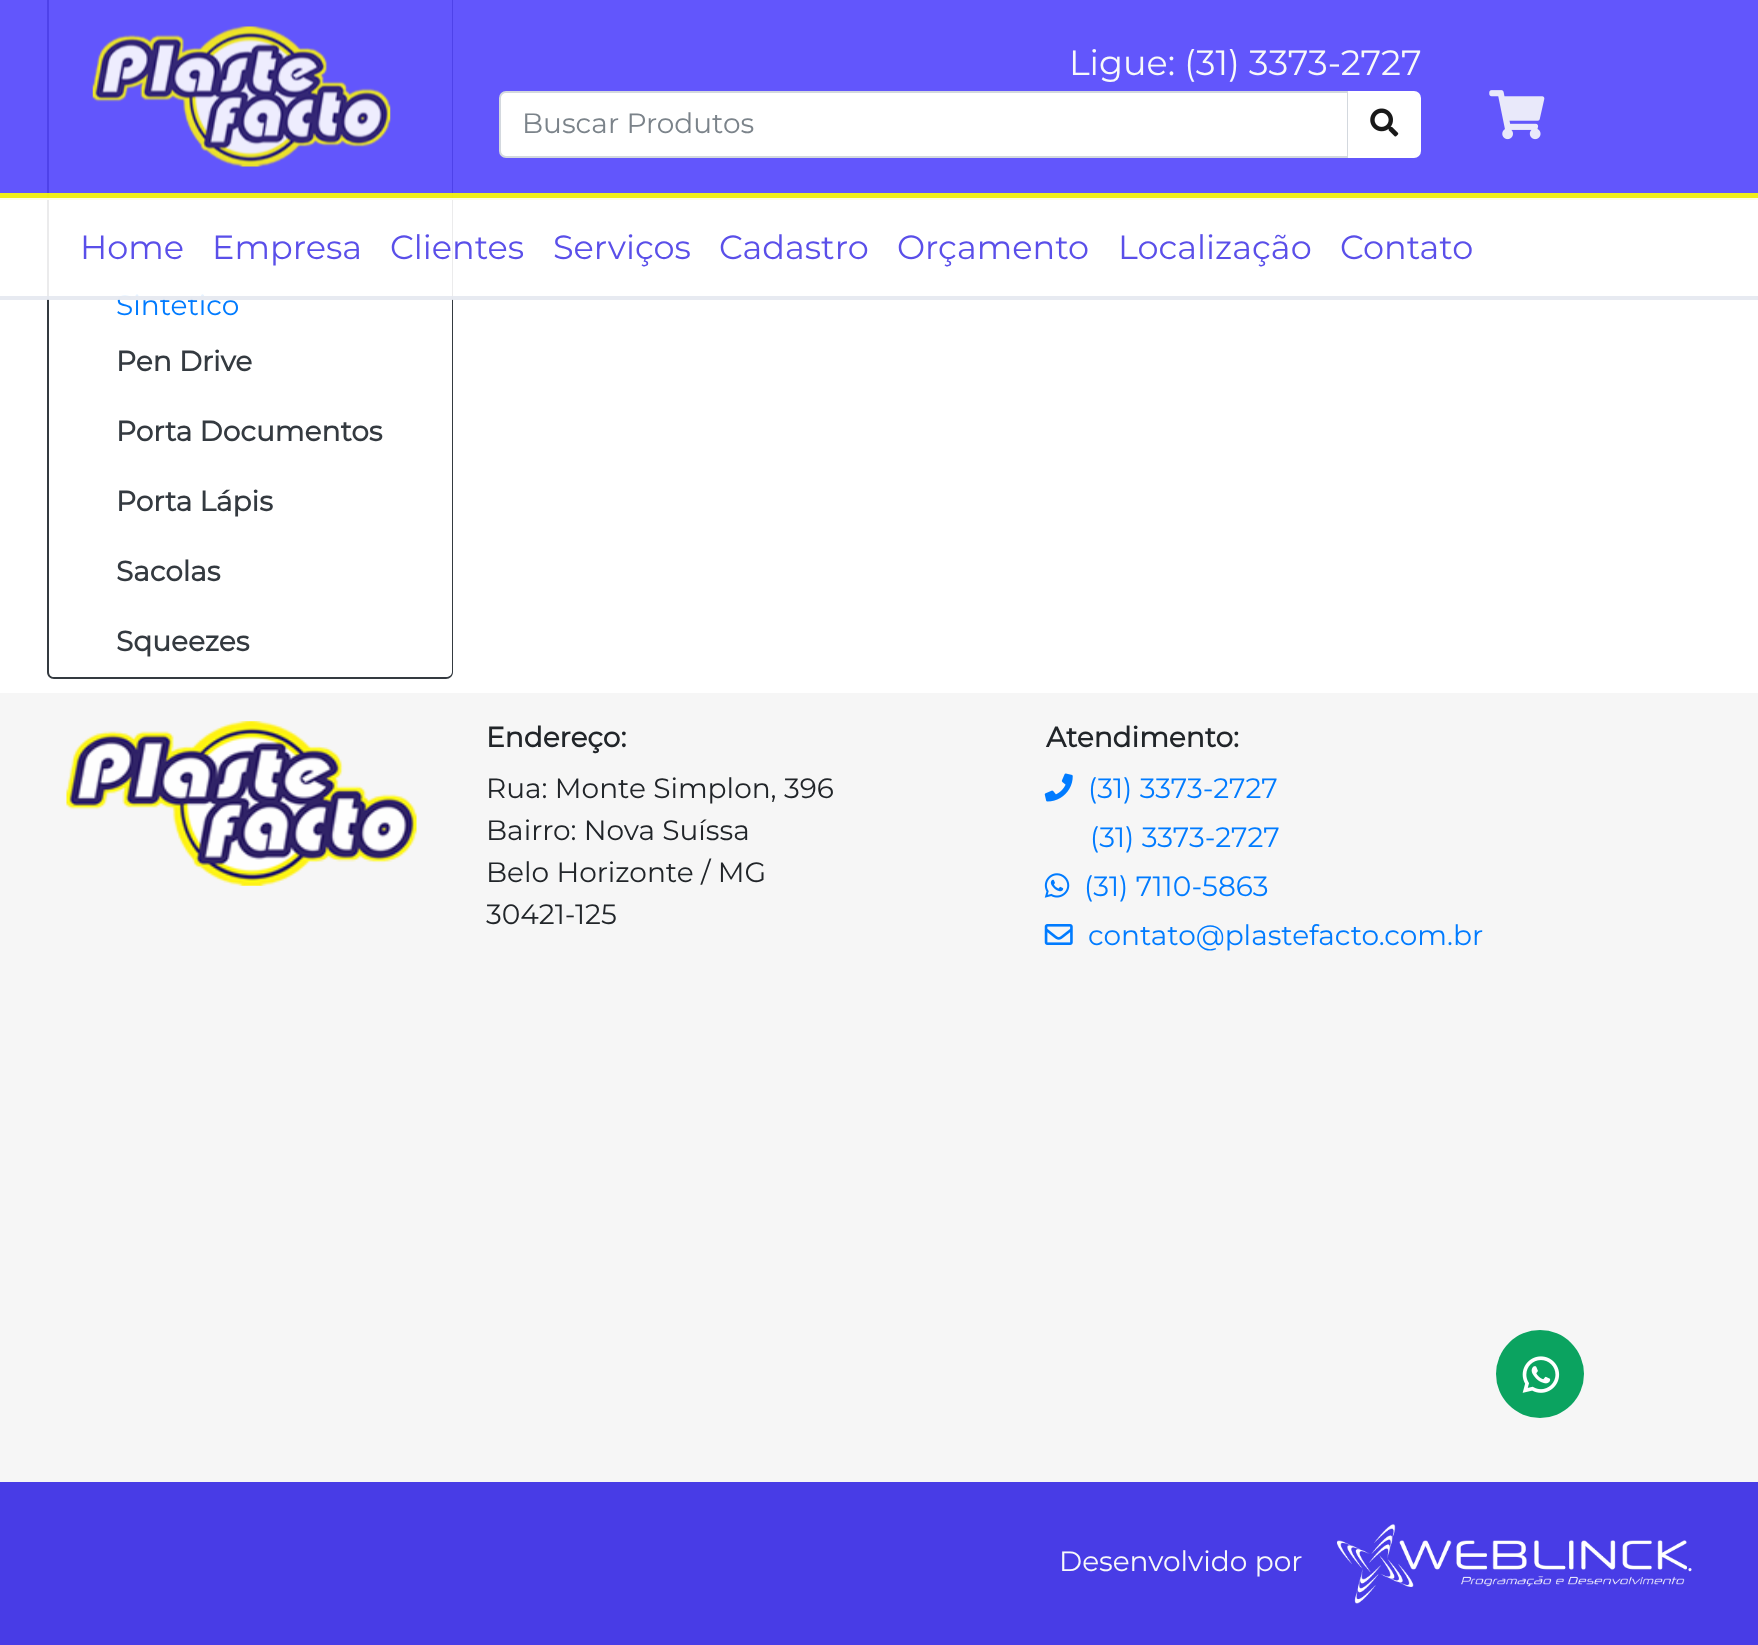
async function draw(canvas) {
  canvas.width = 1758
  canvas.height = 1645
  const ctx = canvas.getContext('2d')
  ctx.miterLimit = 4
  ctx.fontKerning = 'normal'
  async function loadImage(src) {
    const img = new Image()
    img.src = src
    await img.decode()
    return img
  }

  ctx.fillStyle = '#fff'
  ctx.fillRect(0, 0, 1758, 1645)
  ctx.fillStyle = '#343a40'
  ctx.beginPath()
  ctx.moveTo(47, -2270)
  ctx.lineTo(453, -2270)
  ctx.lineTo(453, 672)
  ctx.bezierCurveTo(453, 676, 450, 679, 446, 679)
  ctx.lineTo(54, 679)
  ctx.bezierCurveTo(50, 679, 47, 676, 47, 672)
  ctx.closePath()
  ctx.moveTo(49, -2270)
  ctx.lineTo(452, -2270)
  ctx.lineTo(452, 672)
  ctx.bezierCurveTo(452, 675, 449, 677, 446, 677)
  ctx.lineTo(54, 677)
  ctx.bezierCurveTo(51, 677, 49, 675, 49, 672)
  ctx.closePath()
  ctx.fill('evenodd')
  ctx.fillStyle = '#5144fce6'
  ctx.fillRect(0, 0, 1758, 200)
  ctx.fillStyle = '#ffff00e6'
  ctx.fillRect(0, 193, 1758, 7)
  ctx.drawImage(await loadImage('image0.png'), 92, 26, 299, 141)
  ctx.font = '100 35px Montserrat'
  ctx.fillStyle = '#f8f9fa'
  ctx.fillText('Ligue: (31) 3373-2727', 1069, 75)
  ctx.fillStyle = '#fff'
  ctx.beginPath()
  ctx.roundRect(500, 92, 848, 65, [6, 0, 0, 6])
  ctx.fill()
  ctx.strokeStyle = '#d3d8de'
  ctx.lineWidth = 2
  ctx.stroke()
  ctx.font = '100 28px Montserrat'
  ctx.fillStyle = '#7b838a'
  ctx.fillText('Buscar Produtos', 522, 133)
  ctx.fillStyle = '#fff'
  ctx.beginPath()
  ctx.roundRect(1348, 91, 73, 67, [0, 7, 7, 0])
  ctx.fill()
  ctx.drawImage(await loadImage('image1.png'), 1370, 108, 29, 29)
  ctx.drawImage(await loadImage('image2.png'), 1489, 90, 56, 50)
  ctx.fillStyle = '#007bff'
  ctx.fillText('Sintetico', 116, 315)
  ctx.fillStyle = '#ffffffe6'
  ctx.fillRect(0, 198, 1758, 101)
  ctx.fillStyle = '#e4e8efe6'
  ctx.fillRect(0, 296, 1758, 4)
  ctx.font = '100 33.5px Montserrat'
  ctx.fillStyle = '#5a4fe9'
  ctx.fillText('Home', 80, 259)
  ctx.fillText('Empresa', 212, 259)
  ctx.fillText('Clientes', 390, 259)
  ctx.fillText('Serviços', 553, 259)
  ctx.fillText('Cadastro', 719, 259)
  ctx.fillText('Orçamento', 897, 259)
  ctx.fillText('Localização', 1118, 259)
  ctx.fillText('Contato', 1340, 259)
  ctx.font = 'bold 28px Montserrat'
  ctx.fillStyle = '#343a40'
  ctx.fillText('Pen Drive', 116, 371)
  ctx.fillText('Porta Documentos', 116, 441)
  ctx.fillText('Porta Lápis', 116, 511)
  ctx.fillText('Sacolas', 116, 581)
  ctx.fillText('Squeezes', 116, 651)
  ctx.fillStyle = '#f6f6f6'
  ctx.fillRect(0, 693, 1758, 789)
  ctx.drawImage(await loadImage('image3.png'), 66, 721, 351, 165)
  ctx.fillStyle = '#212529'
  ctx.fillText('Endereço:', 486, 747)
  ctx.font = '100 28px Montserrat'
  ctx.fillText('Rua: Monte Simplon, 396', 486, 798)
  ctx.fillText('Bairro: Nova Suíssa', 486, 840)
  ctx.fillText('Belo Horizonte / MG', 486, 882)
  ctx.fillText('30421-125', 486, 924)
  ctx.font = 'bold 28px Montserrat'
  ctx.fillText('Atendimento:', 1046, 747)
  ctx.drawImage(await loadImage('image4.png'), 1044, 773, 29, 29)
  ctx.font = '100 28px Montserrat'
  ctx.fillStyle = '#007bff'
  ctx.fillText('(31) 3373-2727', 1088, 798)
  ctx.fillText('(31) 3373-2727', 1090, 847)
  ctx.drawImage(await loadImage('image5.png'), 1044, 873, 26, 25)
  ctx.fillText('(31) 7110-5863', 1084, 896)
  ctx.drawImage(await loadImage('image6.png'), 1044, 924, 29, 21)
  ctx.fillText('contato@plastefacto.com.br', 1088, 945)
  ctx.fillStyle = '#483ce6'
  ctx.fillRect(0, 1482, 1758, 163)
  ctx.fillStyle = '#f8f9fa'
  ctx.fillText('Desenvolvido por', 1059, 1571)
  ctx.drawImage(await loadImage('image7.png'), 1337, 1524, 350, 80)
  ctx.fillText('.', 1687, 1571)
  ctx.fillStyle = '#0ba360'
  ctx.beginPath()
  ctx.arc(1540, 1374, 44, 0, 2 * Math.PI)
  ctx.fill()
  ctx.drawImage(await loadImage('image8.png'), 1522, 1356, 38, 37)
}

draw(document.querySelector('canvas'))
